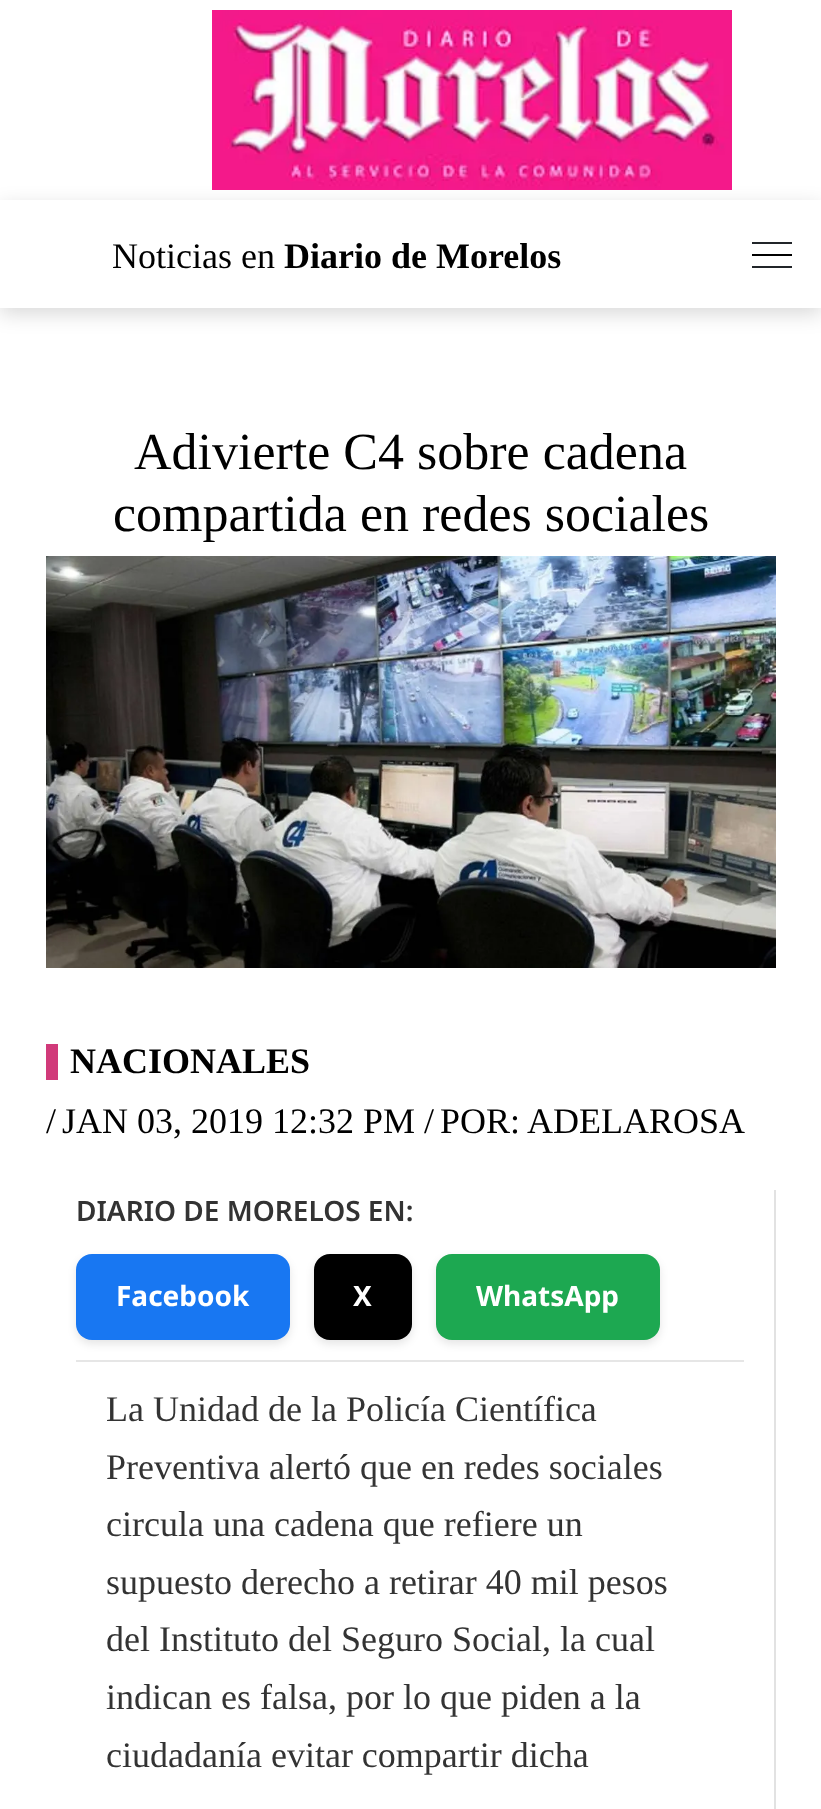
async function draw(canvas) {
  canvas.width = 821
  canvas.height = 1809
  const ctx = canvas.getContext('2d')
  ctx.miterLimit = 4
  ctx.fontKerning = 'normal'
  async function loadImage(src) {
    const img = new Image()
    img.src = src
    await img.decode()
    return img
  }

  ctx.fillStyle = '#fff'
  ctx.fillRect(0, 0, 821, 1809)
  ctx.save()
  ctx.beginPath()
  ctx.moveTo(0, 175)
  ctx.lineTo(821, 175)
  ctx.lineTo(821, 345)
  ctx.lineTo(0, 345)
  ctx.closePath()
  ctx.moveTo(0, 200)
  ctx.lineTo(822, 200)
  ctx.lineTo(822, 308)
  ctx.lineTo(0, 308)
  ctx.closePath()
  ctx.clip('evenodd')
  ctx.fillStyle = '#00000026'
  ctx.filter = 'blur(10px)'
  ctx.beginPath()
  ctx.rect(0, 206, 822, 108)
  ctx.fill()
  ctx.filter = 'none'
  ctx.restore()
  ctx.drawImage(await loadImage('image0.png'), 212, 10, 520, 180)
  ctx.font = '36px Liberation Serif'
  ctx.fillStyle = '#000'
  ctx.fillText('Noticias en', 112, 268)
  ctx.font = 'bold 36px Liberation Serif'
  ctx.fillText('Diario de Morelos', 284, 268)
  ctx.fillRect(752, 254, 40, 2)
  ctx.fillStyle = '#212529'
  ctx.fillRect(752, 242, 40, 2)
  ctx.fillRect(752, 266, 40, 2)
  ctx.font = '52px Liberation Serif'
  ctx.fillStyle = '#000'
  ctx.fillText('Adivierte C4 sobre cadena', 134, 469)
  ctx.fillText('compartida en redes sociales', 113, 531)
  ctx.drawImage(await loadImage('image1.png'), 46, 556, 730, 412)
  ctx.fillStyle = '#d13a7a'
  ctx.fillRect(46, 1044, 12, 36)
  ctx.font = 'bold 36px Liberation Serif'
  ctx.fillStyle = '#000'
  ctx.fillText('NACIONALES', 70, 1073)
  ctx.font = '36px Liberation Serif'
  ctx.fillText('/', 46, 1133)
  ctx.fillText('JAN 03, 2019 12:32 PM /', 62, 1133)
  ctx.fillText('POR:', 440, 1133)
  ctx.fillText('ADELAROSA', 527, 1133)
  ctx.fillStyle = '#e2e2e2'
  ctx.fillRect(774, 1190, 2, 619)
  ctx.font = '600 28px Noto Sans'
  ctx.fillStyle = '#333'
  ctx.fillText('DIARIO DE MORELOS EN:', 76, 1221)
  ctx.fillStyle = '#0000001a'
  ctx.filter = 'blur(4px)'
  ctx.beginPath()
  ctx.roundRect(76, 1258, 214, 86, 16)
  ctx.fill()
  ctx.filter = 'none'
  ctx.fillStyle = '#1877f2'
  ctx.beginPath()
  ctx.roundRect(76, 1254, 214, 86, 16)
  ctx.fill()
  ctx.font = 'bold 28px Noto Sans'
  ctx.fillStyle = '#fff'
  ctx.fillText('Facebook', 116, 1306)
  ctx.fillStyle = '#0000001a'
  ctx.filter = 'blur(4px)'
  ctx.beginPath()
  ctx.roundRect(314, 1258, 98, 86, 16)
  ctx.fill()
  ctx.filter = 'none'
  ctx.fillStyle = '#000'
  ctx.beginPath()
  ctx.roundRect(314, 1254, 98, 86, 16)
  ctx.fill()
  ctx.fillStyle = '#fff'
  ctx.fillText('X', 353, 1306)
  ctx.fillStyle = '#0000001a'
  ctx.filter = 'blur(4px)'
  ctx.beginPath()
  ctx.roundRect(436, 1258, 224, 86, 16)
  ctx.fill()
  ctx.filter = 'none'
  ctx.fillStyle = '#1da851'
  ctx.beginPath()
  ctx.roundRect(436, 1254, 224, 86, 16)
  ctx.fill()
  ctx.fillStyle = '#fff'
  ctx.fillText('WhatsApp', 476, 1306)
  ctx.fillStyle = '#e6e6e6'
  ctx.fillRect(76, 1360, 668, 2)
  ctx.font = '36px Liberation Serif'
  ctx.fillStyle = '#333'
  ctx.fillText('La Unidad de la Policía Científica', 106, 1421)
  ctx.fillText('Preventiva alertó que en redes sociales', 106, 1479)
  ctx.fillText('circula una cadena que refiere un', 106, 1536)
  ctx.fillText('supuesto derecho a retirar 40 mil pesos', 106, 1594)
  ctx.fillText('del Instituto del Seguro Social, la cual', 106, 1651)
  ctx.fillText('indican es falsa, por lo que piden a la', 106, 1709)
  ctx.fillText('ciudadanía evitar compartir dicha', 106, 1767)
}

draw(document.querySelector('canvas'))
